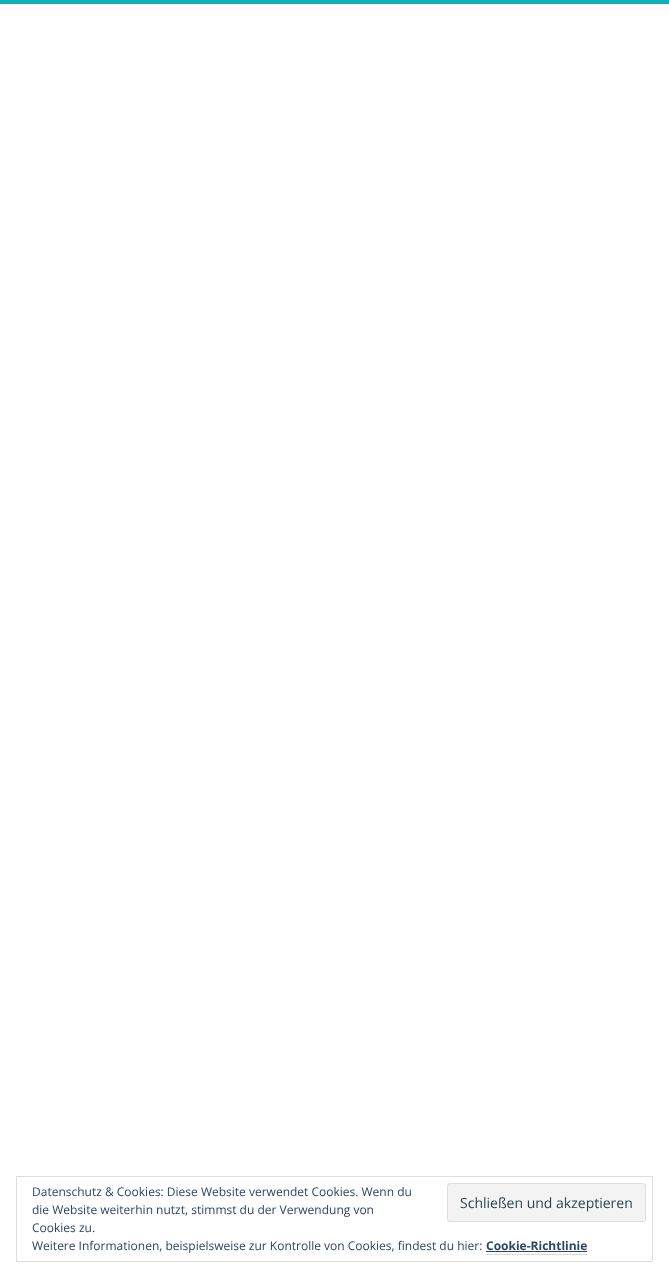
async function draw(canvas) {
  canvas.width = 669
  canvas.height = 1278
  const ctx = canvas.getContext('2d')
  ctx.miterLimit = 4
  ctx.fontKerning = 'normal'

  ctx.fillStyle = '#fff'
  ctx.fillRect(0, 0, 669, 1278)
  ctx.fillStyle = '#10b0b8'
  ctx.fillRect(0, 0, 669, 4)
  ctx.strokeStyle = '#dedede'
  ctx.strokeRect(16.5, 1176.5, 636, 85)
  ctx.font = '12px Open Sans'
  ctx.fillStyle = '#2e4467'
  ctx.fillText('Datenschutz & Cookies: Diese Website verwendet Cookies. Wenn du', 32, 1196)
  ctx.fillText('die Website weiterhin nutzt, stimmst du der Verwendung von', 32, 1214)
  ctx.fillStyle = '#f3f3f3'
  ctx.beginPath()
  ctx.roundRect(447.5, 1183.5, 198, 38, 2.5)
  ctx.fill()
  ctx.stroke()
  ctx.font = '14px Open Sans'
  ctx.fillStyle = '#2e4453'
  ctx.fillText('Schließen und akzeptieren', 460, 1208)
  ctx.font = '12px Open Sans'
  ctx.fillStyle = '#2e4467'
  ctx.fillText('Cookies zu.', 32, 1232)
  ctx.fillText('Weitere Informationen, beispielsweise zur Kontrolle von Cookies, findest du hier:', 32, 1250)
  ctx.font = 'bold 12px Open Sans'
  ctx.fillText('Cookie-Richtlinie', 486, 1250)
  ctx.fillStyle = '#d9d9d9'
  ctx.fillRect(486, 1254, 101, 1)
  ctx.fillStyle = '#2e4467'
  ctx.fillRect(486, 1251, 101, 1)
}

draw(document.querySelector('canvas'))
